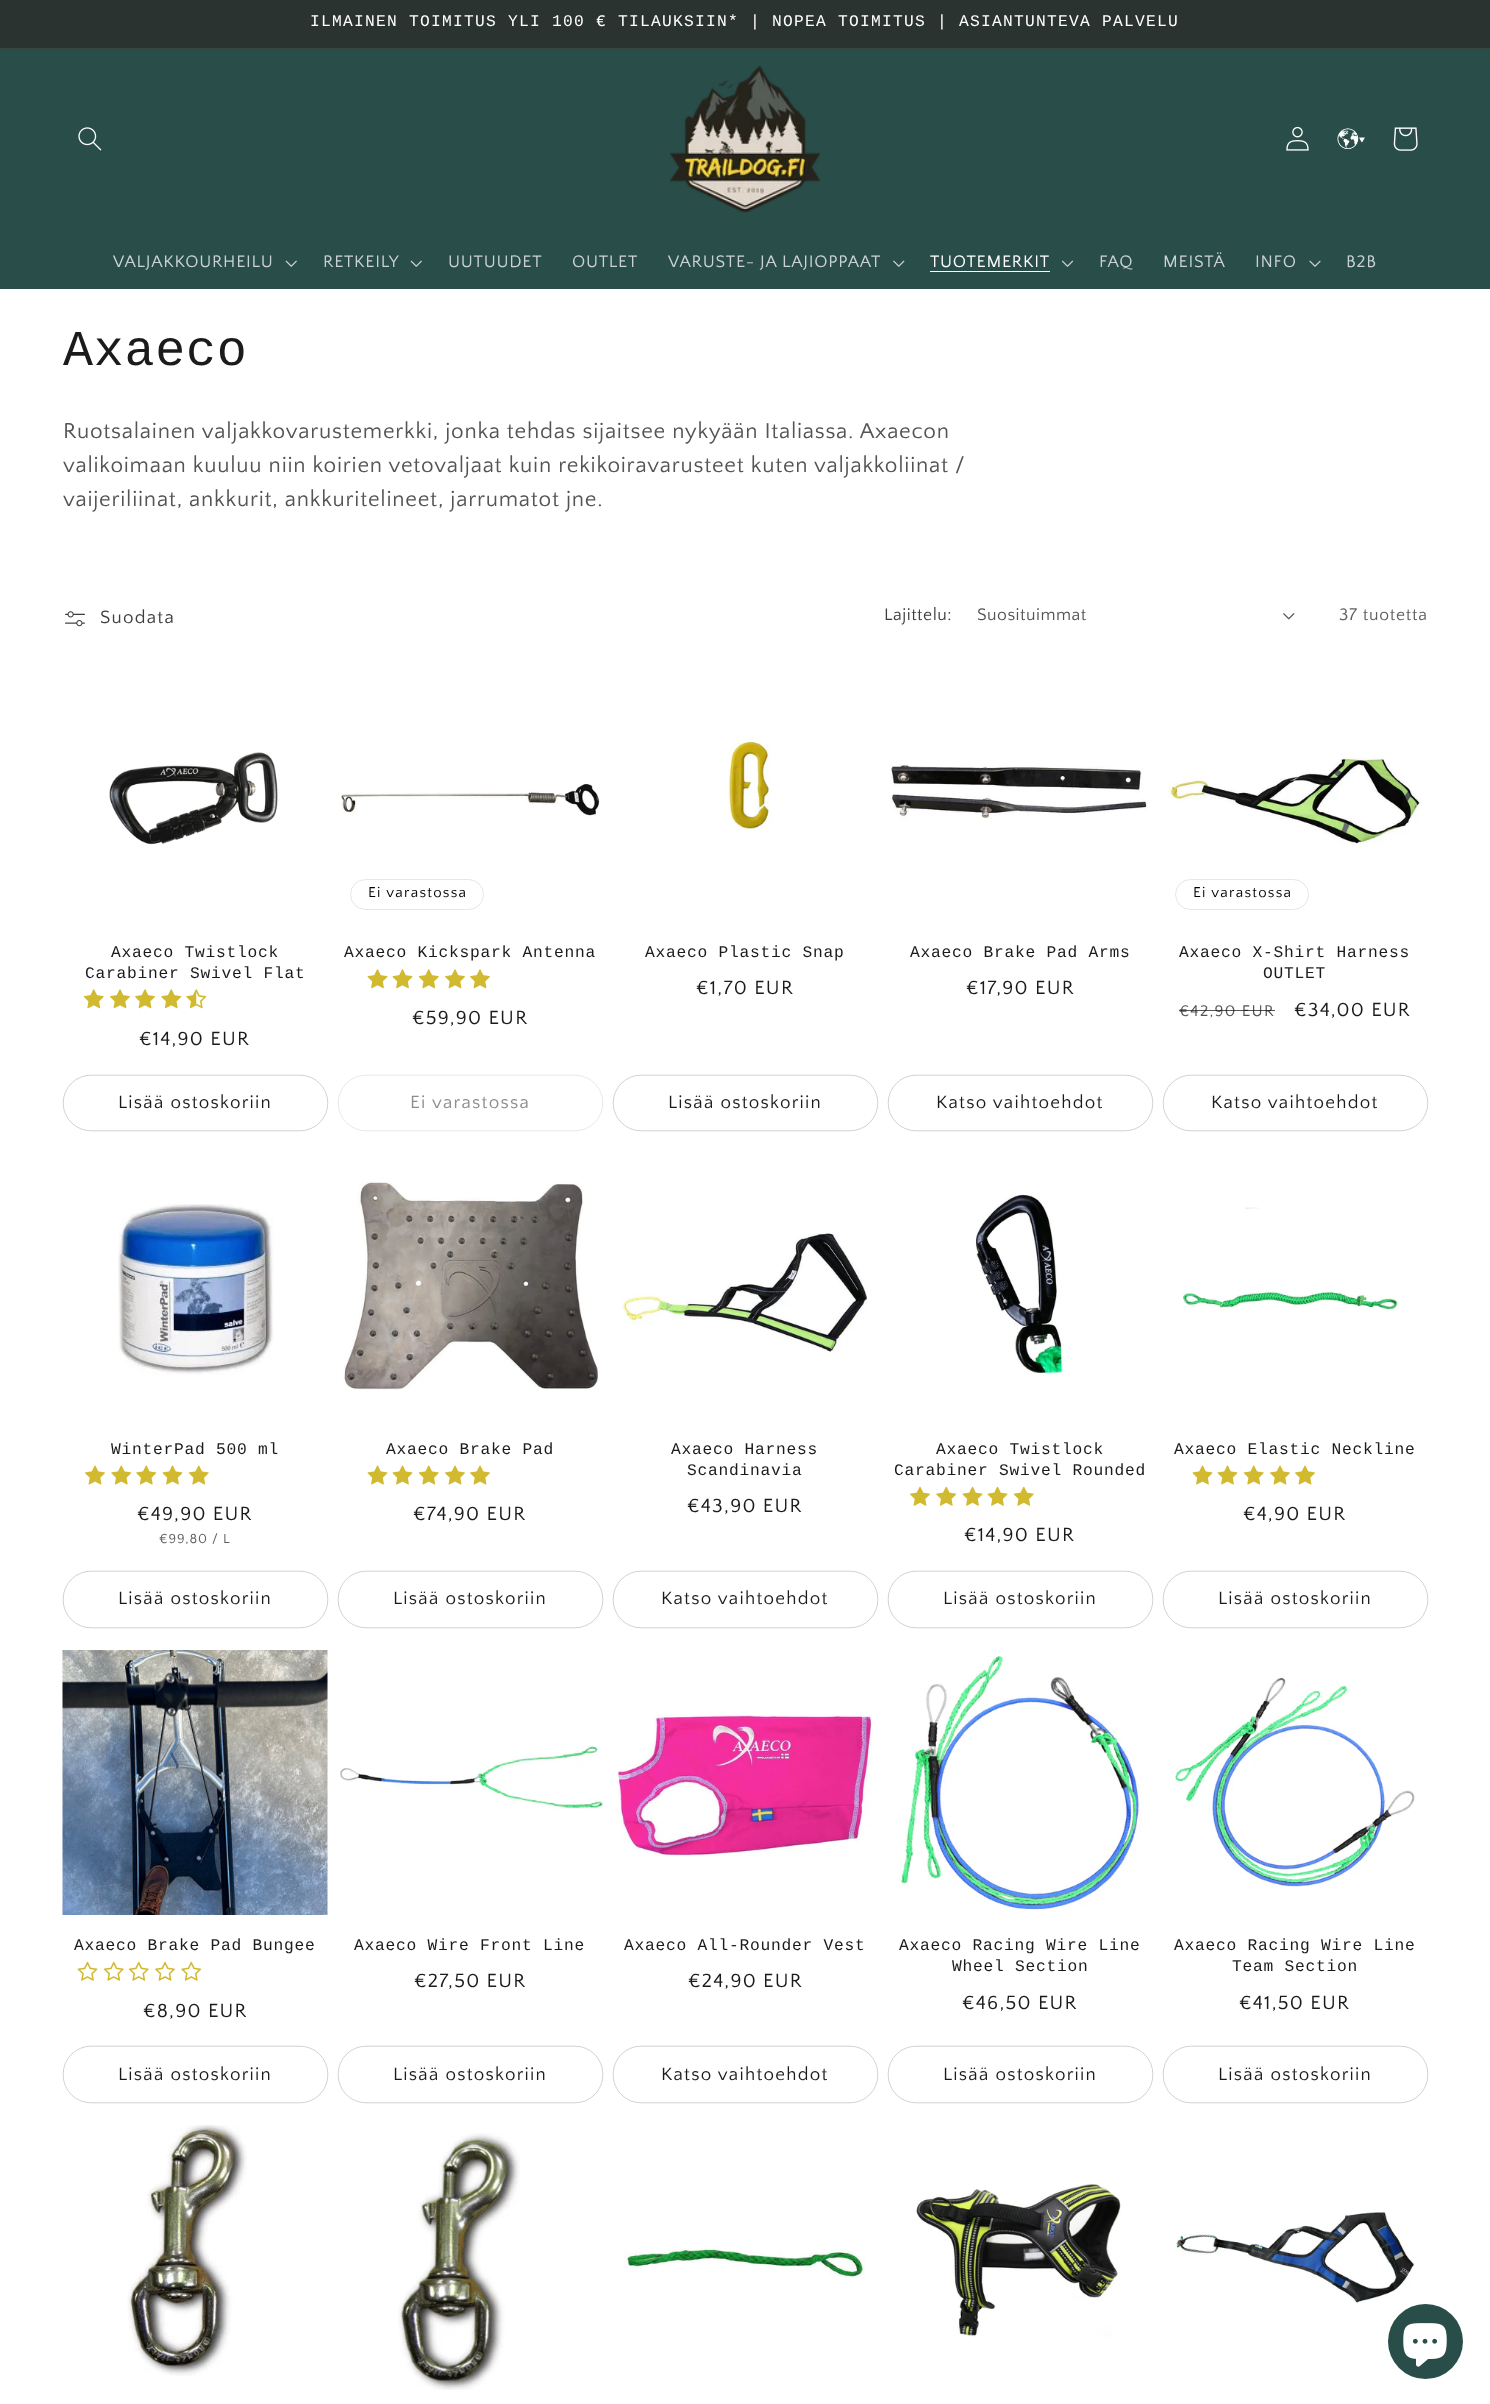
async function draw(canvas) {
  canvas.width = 1490
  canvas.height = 2404
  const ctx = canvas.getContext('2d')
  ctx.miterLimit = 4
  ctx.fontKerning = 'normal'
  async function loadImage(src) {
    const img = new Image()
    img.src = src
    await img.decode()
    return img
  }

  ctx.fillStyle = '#fff'
  ctx.fillRect(0, 0, 1490, 2404)
  ctx.fillStyle = '#2a332f'
  ctx.fillRect(0, 0, 1490, 48)
  ctx.fillStyle = '#3b4340'
  ctx.fillRect(0, 48, 1490, 1)
  ctx.letterSpacing = '1.25px'
  ctx.font = '16.25px Liberation Mono'
  ctx.fillStyle = '#fff'
  ctx.fillText('ILMAINEN TOIMITUS YLI 100 € TILAUKSIIN* | NOPEA TOIMITUS | ASIANTUNTEVA PALVELU', 310, 26)
  ctx.fillStyle = '#294d49'
  ctx.fillRect(0, 49, 1490, 240)
  ctx.drawImage(await loadImage('image0.png'), 78, 127, 24, 24)
  ctx.drawImage(await loadImage('image1.png'), 670, 65, 150, 148)
  ctx.drawImage(await loadImage('image2.png'), 1286, 126, 23, 25)
  ctx.drawImage(await loadImage('image3.png'), 1337, 128, 28, 21)
  ctx.drawImage(await loadImage('image4.png'), 1393, 127, 25, 24)
  ctx.letterSpacing = '0.75px'
  ctx.font = '17.5px Quattrocento Sans'
  ctx.fillStyle = '#cad3d2'
  ctx.fillText('VALJAKKOURHEILU', 113, 267)
  ctx.drawImage(await loadImage('image5.png'), 285, 260, 12, 7)
  ctx.fillText('RETKEILY', 323, 267)
  ctx.drawImage(await loadImage('image5.png'), 410, 260, 12, 7)
  ctx.fillText('UUTUUDET', 448, 267)
  ctx.fillText('OUTLET', 572, 267)
  ctx.fillText('VARUSTE- JA LAJIOPPAAT', 668, 267)
  ctx.drawImage(await loadImage('image6.png'), 893, 260, 12, 7)
  ctx.fillStyle = '#fff'
  ctx.fillText('TUOTEMERKIT', 930, 267)
  ctx.fillRect(930, 271, 120, 1)
  ctx.drawImage(await loadImage('image7.png'), 1061, 260, 13, 7)
  ctx.fillStyle = '#cad3d2'
  ctx.fillText('FAQ', 1099, 267)
  ctx.fillText('MEISTÄ', 1163, 267)
  ctx.fillText('INFO', 1255, 267)
  ctx.drawImage(await loadImage('image8.png'), 1309, 260, 12, 7)
  ctx.fillText('B2B', 1346, 267)
  ctx.font = '50px Liberation Mono'
  ctx.fillStyle = '#1c1a1a'
  ctx.fillText('Axaeco', 63, 365)
  ctx.font = '22.5px Quattrocento Sans'
  ctx.fillStyle = '#555353'
  ctx.fillText('Ruotsalainen valjakkovarustemerkki, jonka tehdas sijaitsee nykyään Italiassa. Axaecon', 63, 438)
  ctx.fillText('valikoimaan kuuluu niin koirien vetovaljaat kuin rekikoiravarusteet kuten valjakkoliinat /', 63, 472)
  ctx.fillText('vaijeriliinat, ankkurit, ankkuritelineet, jarrumatot jne.', 63, 506)
  ctx.drawImage(await loadImage('image9.png'), 65, 611, 20, 16)
  ctx.letterSpacing = '1.25px'
  ctx.font = '18.75px Quattrocento Sans'
  ctx.fillStyle = '#3e3c3c'
  ctx.fillText('Suodata', 100, 623)
  ctx.letterSpacing = '0.5px'
  ctx.font = '17.5px Quattrocento Sans'
  ctx.fillText('Lajittelu:', 884, 620)
  ctx.fillStyle = '#555353'
  ctx.fillText('Suosituimmat', 977, 620)
  ctx.drawImage(await loadImage('image10.png'), 1283, 613, 12, 7)
  ctx.letterSpacing = '0.75px'
  ctx.fillStyle = '#605f5f'
  ctx.fillText('37 tuotetta', 1339, 620)
  ctx.drawImage(await loadImage('image11.png'), 109, 752, 169, 93)
  ctx.font = '16.25px Liberation Mono'
  ctx.fillStyle = '#1c1a1a'
  ctx.fillText('Axaeco Twistlock', 111, 957)
  ctx.fillText('Carabiner Swivel Flat', 85, 978)
  ctx.drawImage(await loadImage('image12.png'), 83, 989, 21, 20)
  ctx.drawImage(await loadImage('image13.png'), 110, 989, 20, 20)
  ctx.drawImage(await loadImage('image13.png'), 135, 989, 20, 20)
  ctx.drawImage(await loadImage('image14.png'), 161, 989, 21, 20)
  ctx.drawImage(await loadImage('image15.png'), 186, 989, 21, 20)
  ctx.letterSpacing = '1.25px'
  ctx.font = '20px Quattrocento Sans'
  ctx.fillText('€14,90 EUR', 139, 1045)
  ctx.beginPath()
  ctx.roundRect(63.2, 1075.2, 264.6, 55.6, 27.8)
  ctx.strokeStyle = '#8e8d8d'
  ctx.lineWidth = 0.4
  ctx.stroke()
  ctx.font = '18.75px Quattrocento Sans'
  ctx.fillText('Lisää ostoskoriin', 118, 1108)
  ctx.drawImage(await loadImage('image16.png'), 340, 783, 260, 34)
  ctx.beginPath()
  ctx.roundRect(350.5, 879.5, 133, 30, 15)
  ctx.strokeStyle = '#e6e6e6'
  ctx.lineWidth = 1
  ctx.stroke()
  ctx.font = '15px Quattrocento Sans'
  ctx.fillStyle = '#000'
  ctx.fillText('Ei varastossa', 368, 897)
  ctx.letterSpacing = '0.75px'
  ctx.font = '16.25px Liberation Mono'
  ctx.fillStyle = '#1c1a1a'
  ctx.fillText('Axaeco Kickspark Antenna', 344, 957)
  ctx.drawImage(await loadImage('image17.png'), 367, 969, 21, 20)
  ctx.drawImage(await loadImage('image17.png'), 392, 969, 21, 20)
  ctx.drawImage(await loadImage('image12.png'), 418, 969, 21, 20)
  ctx.drawImage(await loadImage('image13.png'), 445, 969, 20, 20)
  ctx.drawImage(await loadImage('image13.png'), 470, 969, 20, 20)
  ctx.letterSpacing = '1.25px'
  ctx.font = '20px Quattrocento Sans'
  ctx.fillText('€59,90 EUR', 412, 1024)
  ctx.beginPath()
  ctx.roundRect(338.2, 1075.2, 264.6, 55.6, 27.8)
  ctx.strokeStyle = '#c7c6c6'
  ctx.lineWidth = 0.4
  ctx.stroke()
  ctx.font = '18.75px Quattrocento Sans'
  ctx.fillStyle = '#8e8d8d'
  ctx.fillText('Ei varastossa', 410, 1108)
  ctx.drawImage(await loadImage('image18.png'), 727, 740, 45, 90)
  ctx.letterSpacing = '0.75px'
  ctx.font = '16.25px Liberation Mono'
  ctx.fillStyle = '#1c1a1a'
  ctx.fillText('Axaeco Plastic Snap', 645, 957)
  ctx.letterSpacing = '1.25px'
  ctx.font = '20px Quattrocento Sans'
  ctx.fillText('€1,70 EUR', 696, 994)
  ctx.beginPath()
  ctx.roundRect(613.2, 1075.2, 264.6, 55.6, 27.8)
  ctx.strokeStyle = '#8e8d8d'
  ctx.stroke()
  ctx.font = '18.75px Quattrocento Sans'
  ctx.fillText('Lisää ostoskoriin', 668, 1108)
  ctx.drawImage(await loadImage('image19.png'), 890, 764, 258, 56)
  ctx.letterSpacing = '0.75px'
  ctx.font = '16.25px Liberation Mono'
  ctx.fillText('Axaeco Brake Pad Arms', 910, 957)
  ctx.letterSpacing = '1.25px'
  ctx.font = '20px Quattrocento Sans'
  ctx.fillText('€17,90 EUR', 966, 994)
  ctx.beginPath()
  ctx.roundRect(888.2, 1075.2, 264.6, 55.6, 27.8)
  ctx.stroke()
  ctx.font = '18.75px Quattrocento Sans'
  ctx.fillText('Katso vaihtoehdot', 936, 1108)
  ctx.drawImage(await loadImage('image20.png'), 1168, 757, 254, 89)
  ctx.beginPath()
  ctx.roundRect(1175.5, 879.5, 133, 30, 15)
  ctx.strokeStyle = '#e6e6e6'
  ctx.lineWidth = 1
  ctx.stroke()
  ctx.font = '15px Quattrocento Sans'
  ctx.fillStyle = '#000'
  ctx.fillText('Ei varastossa', 1193, 897)
  ctx.letterSpacing = '0.75px'
  ctx.font = '16.25px Liberation Mono'
  ctx.fillStyle = '#1c1a1a'
  ctx.fillText('Axaeco X-Shirt Harness', 1179, 957)
  ctx.fillText('OUTLET', 1263, 978)
  ctx.letterSpacing = '1.25px'
  ctx.font = '16.25px Quattrocento Sans'
  ctx.fillStyle = '#555353'
  ctx.fillText('€42,90 EUR', 1179, 1016)
  ctx.fillStyle = '#1c1a1abf'
  ctx.fillRect(1179, 1010, 96, 1)
  ctx.font = '20px Quattrocento Sans'
  ctx.fillStyle = '#1c1a1a'
  ctx.fillText('€34,00 EUR', 1294, 1016)
  ctx.beginPath()
  ctx.roundRect(1163.2, 1075.2, 264.6, 55.6, 27.8)
  ctx.strokeStyle = '#8e8d8d'
  ctx.lineWidth = 0.4
  ctx.stroke()
  ctx.font = '18.75px Quattrocento Sans'
  ctx.fillText('Katso vaihtoehdot', 1211, 1108)
  ctx.drawImage(await loadImage('image21.png'), 118, 1204, 156, 171)
  ctx.letterSpacing = '0.75px'
  ctx.font = '16.25px Liberation Mono'
  ctx.fillText('WinterPad 500 ml', 111, 1454)
  ctx.drawImage(await loadImage('image22.png'), 85, 1465, 20, 20)
  ctx.drawImage(await loadImage('image23.png'), 111, 1465, 21, 20)
  ctx.drawImage(await loadImage('image23.png'), 136, 1465, 21, 20)
  ctx.drawImage(await loadImage('image24.png'), 162, 1465, 21, 20)
  ctx.drawImage(await loadImage('image25.png'), 188, 1465, 21, 20)
  ctx.letterSpacing = '1.25px'
  ctx.font = '20px Quattrocento Sans'
  ctx.fillText('€49,90 EUR', 137, 1520)
  ctx.letterSpacing = '0.9px'
  ctx.font = '13.75px Quattrocento Sans'
  ctx.fillStyle = '#605f5f'
  ctx.fillText('€99,80 / L', 159, 1543)
  ctx.beginPath()
  ctx.roundRect(63.2, 1571.2, 264.6, 56.6, 27.8)
  ctx.stroke()
  ctx.letterSpacing = '1.25px'
  ctx.font = '18.75px Quattrocento Sans'
  ctx.fillStyle = '#1c1a1a'
  ctx.fillText('Lisää ostoskoriin', 118, 1604)
  ctx.drawImage(await loadImage('image26.png'), 343, 1181, 256, 209)
  ctx.letterSpacing = '0.75px'
  ctx.font = '16.25px Liberation Mono'
  ctx.fillText('Axaeco Brake Pad', 386, 1454)
  ctx.drawImage(await loadImage('image24.png'), 367, 1465, 21, 20)
  ctx.drawImage(await loadImage('image24.png'), 392, 1465, 21, 20)
  ctx.drawImage(await loadImage('image25.png'), 418, 1465, 21, 20)
  ctx.drawImage(await loadImage('image22.png'), 445, 1465, 20, 20)
  ctx.drawImage(await loadImage('image22.png'), 470, 1465, 20, 20)
  ctx.letterSpacing = '1.25px'
  ctx.font = '20px Quattrocento Sans'
  ctx.fillText('€74,90 EUR', 413, 1520)
  ctx.beginPath()
  ctx.roundRect(338.2, 1571.2, 264.6, 56.6, 27.8)
  ctx.stroke()
  ctx.font = '18.75px Quattrocento Sans'
  ctx.fillText('Lisää ostoskoriin', 393, 1604)
  ctx.drawImage(await loadImage('image27.png'), 621, 1232, 248, 122)
  ctx.letterSpacing = '0.75px'
  ctx.font = '16.25px Liberation Mono'
  ctx.fillText('Axaeco Harness', 671, 1454)
  ctx.fillText('Scandinavia', 687, 1475)
  ctx.letterSpacing = '1.25px'
  ctx.font = '20px Quattrocento Sans'
  ctx.fillText('€43,90 EUR', 687, 1512)
  ctx.beginPath()
  ctx.roundRect(613.2, 1571.2, 264.6, 56.6, 27.8)
  ctx.stroke()
  ctx.font = '18.75px Quattrocento Sans'
  ctx.fillText('Katso vaihtoehdot', 661, 1604)
  ctx.drawImage(await loadImage('image28.png'), 975, 1194, 89, 183)
  ctx.letterSpacing = '0.75px'
  ctx.font = '16.25px Liberation Mono'
  ctx.fillText('Axaeco Twistlock', 936, 1454)
  ctx.fillText('Carabiner Swivel Rounded', 894, 1475)
  ctx.drawImage(await loadImage('image29.png'), 910, 1486, 20, 20)
  ctx.drawImage(await loadImage('image30.png'), 936, 1486, 21, 20)
  ctx.drawImage(await loadImage('image31.png'), 962, 1486, 21, 20)
  ctx.drawImage(await loadImage('image31.png'), 987, 1486, 21, 20)
  ctx.drawImage(await loadImage('image32.png'), 1013, 1486, 21, 20)
  ctx.letterSpacing = '1.25px'
  ctx.font = '20px Quattrocento Sans'
  ctx.fillText('€14,90 EUR', 964, 1541)
  ctx.beginPath()
  ctx.roundRect(888.2, 1571.2, 264.6, 56.6, 27.8)
  ctx.stroke()
  ctx.font = '18.75px Quattrocento Sans'
  ctx.fillText('Lisää ostoskoriin', 943, 1604)
  ctx.drawImage(await loadImage('image33.png'), 1182, 1207, 216, 106)
  ctx.letterSpacing = '0.75px'
  ctx.font = '16.25px Liberation Mono'
  ctx.fillText('Axaeco Elastic Neckline', 1174, 1454)
  ctx.drawImage(await loadImage('image24.png'), 1192, 1465, 21, 20)
  ctx.drawImage(await loadImage('image24.png'), 1217, 1465, 21, 20)
  ctx.drawImage(await loadImage('image25.png'), 1243, 1465, 21, 20)
  ctx.drawImage(await loadImage('image22.png'), 1270, 1465, 20, 20)
  ctx.drawImage(await loadImage('image22.png'), 1295, 1465, 20, 20)
  ctx.letterSpacing = '1.25px'
  ctx.font = '20px Quattrocento Sans'
  ctx.fillText('€4,90 EUR', 1243, 1520)
  ctx.beginPath()
  ctx.roundRect(1163.2, 1571.2, 264.6, 56.6, 27.8)
  ctx.stroke()
  ctx.font = '18.75px Quattrocento Sans'
  ctx.fillText('Lisää ostoskoriin', 1218, 1604)
  ctx.drawImage(await loadImage('image34.png'), 62, 1650, 266, 265)
  ctx.letterSpacing = '0.75px'
  ctx.font = '16.25px Liberation Mono'
  ctx.fillText('Axaeco Brake Pad Bungee', 74, 1950)
  ctx.drawImage(await loadImage('image35.png'), 77, 1961, 21, 20)
  ctx.drawImage(await loadImage('image36.png'), 103, 1961, 21, 20)
  ctx.drawImage(await loadImage('image36.png'), 128, 1961, 21, 20)
  ctx.drawImage(await loadImage('image37.png'), 155, 1961, 20, 20)
  ctx.drawImage(await loadImage('image38.png'), 181, 1961, 21, 20)
  ctx.letterSpacing = '1.25px'
  ctx.font = '20px Quattrocento Sans'
  ctx.fillText('€8,90 EUR', 143, 2017)
  ctx.beginPath()
  ctx.roundRect(63.2, 2046.2, 264.6, 56.6, 27.8)
  ctx.stroke()
  ctx.font = '18.75px Quattrocento Sans'
  ctx.fillText('Lisää ostoskoriin', 118, 2080)
  ctx.drawImage(await loadImage('image39.png'), 340, 1746, 263, 63)
  ctx.letterSpacing = '0.75px'
  ctx.font = '16.25px Liberation Mono'
  ctx.fillText('Axaeco Wire Front Line', 354, 1950)
  ctx.letterSpacing = '1.25px'
  ctx.font = '20px Quattrocento Sans'
  ctx.fillText('€27,50 EUR', 414, 1987)
  ctx.beginPath()
  ctx.roundRect(338.2, 2046.2, 264.6, 56.6, 27.8)
  ctx.stroke()
  ctx.font = '18.75px Quattrocento Sans'
  ctx.fillText('Lisää ostoskoriin', 393, 2080)
  ctx.drawImage(await loadImage('image40.png'), 617, 1715, 255, 141)
  ctx.letterSpacing = '0.75px'
  ctx.font = '16.25px Liberation Mono'
  ctx.fillText('Axaeco All-Rounder Vest', 624, 1950)
  ctx.letterSpacing = '1.25px'
  ctx.font = '20px Quattrocento Sans'
  ctx.fillText('€24,90 EUR', 688, 1987)
  ctx.beginPath()
  ctx.roundRect(613.2, 2046.2, 264.6, 56.6, 27.8)
  ctx.stroke()
  ctx.font = '18.75px Quattrocento Sans'
  ctx.fillText('Katso vaihtoehdot', 661, 2080)
  ctx.drawImage(await loadImage('image41.png'), 899, 1655, 242, 255)
  ctx.letterSpacing = '0.75px'
  ctx.font = '16.25px Liberation Mono'
  ctx.fillText('Axaeco Racing Wire Line', 899, 1950)
  ctx.fillText('Wheel Section', 952, 1971)
  ctx.letterSpacing = '1.25px'
  ctx.font = '20px Quattrocento Sans'
  ctx.fillText('€46,50 EUR', 962, 2009)
  ctx.beginPath()
  ctx.roundRect(888.2, 2046.2, 264.6, 56.6, 27.8)
  ctx.stroke()
  ctx.font = '18.75px Quattrocento Sans'
  ctx.fillText('Lisää ostoskoriin', 943, 2080)
  ctx.drawImage(await loadImage('image42.png'), 1175, 1677, 240, 210)
  ctx.letterSpacing = '0.75px'
  ctx.font = '16.25px Liberation Mono'
  ctx.fillText('Axaeco Racing Wire Line', 1174, 1950)
  ctx.fillText('Team Section', 1232, 1971)
  ctx.letterSpacing = '1.25px'
  ctx.font = '20px Quattrocento Sans'
  ctx.fillText('€41,50 EUR', 1239, 2009)
  ctx.beginPath()
  ctx.roundRect(1163.2, 2046.2, 264.6, 56.6, 27.8)
  ctx.stroke()
  ctx.font = '18.75px Quattrocento Sans'
  ctx.fillText('Lisää ostoskoriin', 1218, 2080)
  ctx.drawImage(await loadImage('image43.png'), 127, 2125, 120, 251)
  ctx.drawImage(await loadImage('image44.png'), 398, 2133, 122, 257)
  ctx.drawImage(await loadImage('image45.png'), 624, 2248, 242, 30)
  ctx.drawImage(await loadImage('image46.png'), 915, 2184, 208, 153)
  ctx.drawImage(await loadImage('image47.png'), 1176, 2210, 240, 94)
  ctx.fillStyle = '#294d49'
  ctx.beginPath()
  ctx.arc(1425.5, 2341.5, 37.5, 0, 2 * Math.PI)
  ctx.fill()
  ctx.drawImage(await loadImage('image48.png'), 1403, 2323, 44, 44)
}

draw(document.querySelector('canvas'))
